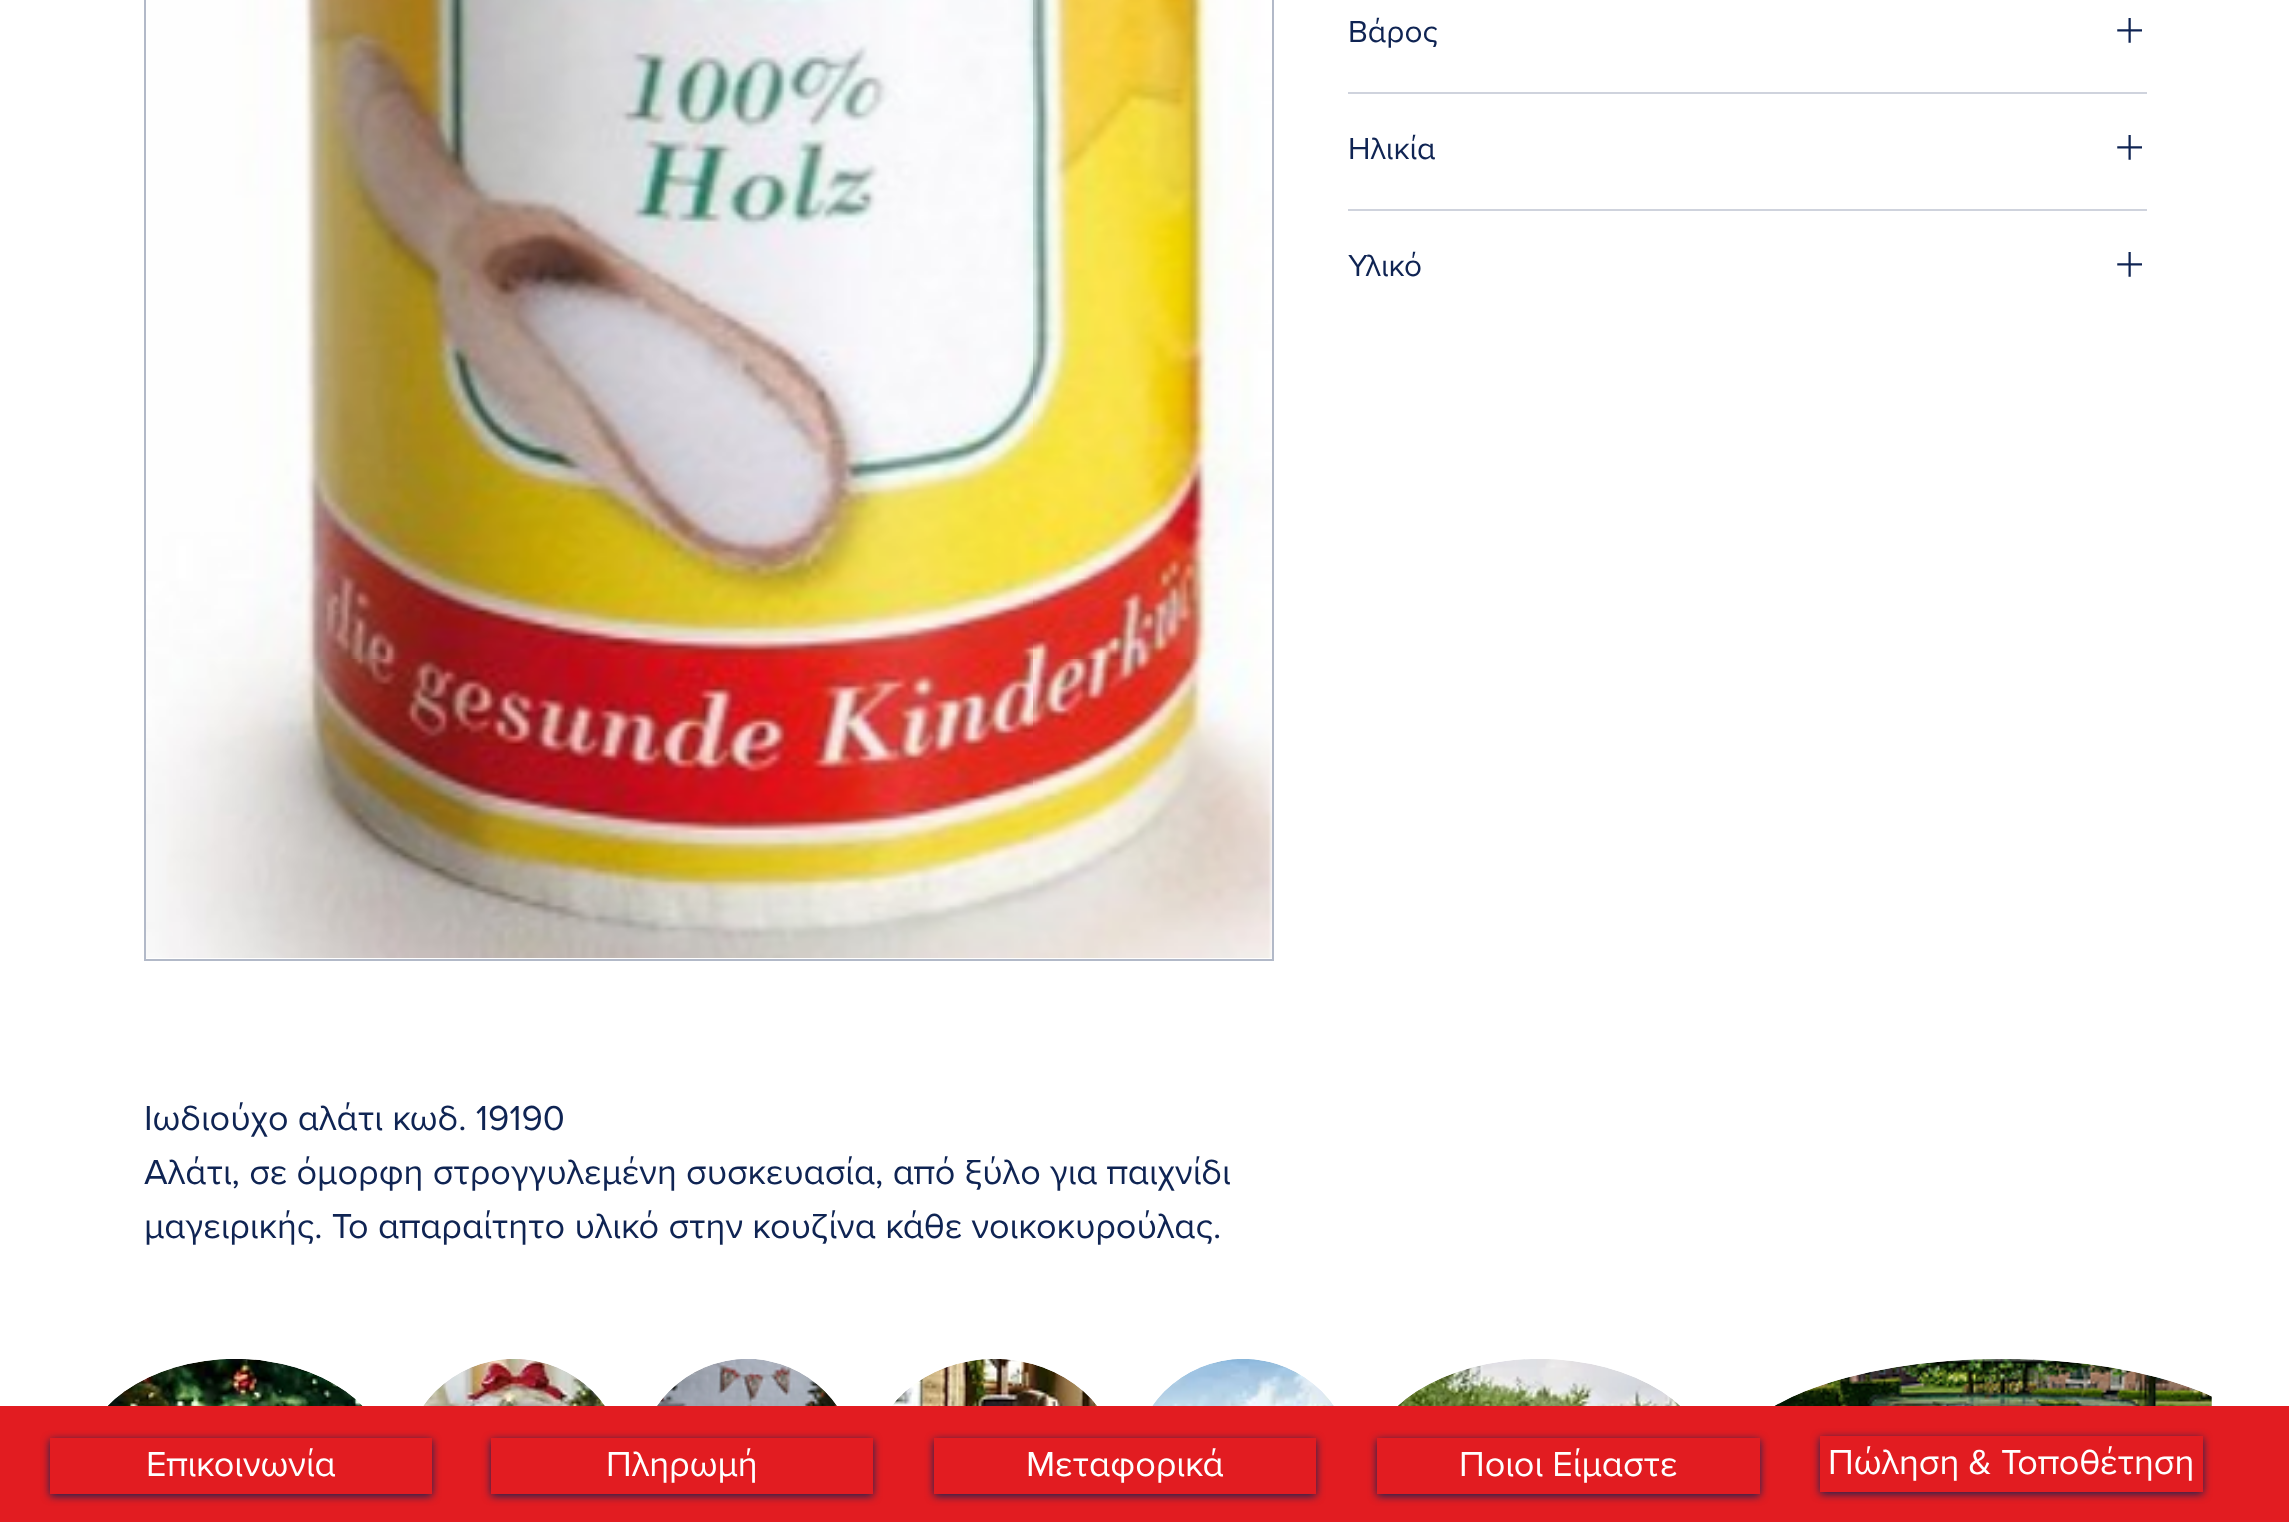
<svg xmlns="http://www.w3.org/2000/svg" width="2289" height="1522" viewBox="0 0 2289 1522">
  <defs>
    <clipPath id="clip1"><path d="M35 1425H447V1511H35ZM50 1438H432V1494H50Z" clip-rule="evenodd"/></clipPath>
    <clipPath id="clip2"><path d="M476 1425H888V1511H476ZM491 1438H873V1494H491Z" clip-rule="evenodd"/></clipPath>
    <clipPath id="clip3"><path d="M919 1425H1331V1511H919ZM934 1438H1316V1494H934Z" clip-rule="evenodd"/></clipPath>
  </defs>
  <rect width="100%" height="100%" fill="#fff"/>
  <path d="M1348 92h799v2H1348z" fill="#cfd3dd"/>
  <image x="2117" y="18" width="25" height="25" href="img/1.png"/>
  <path d="M1348 209h799v2H1348z" fill="#cfd3dd"/>
  <image x="2117" y="135" width="25" height="25" href="img/1.png"/>
  <image x="2117" y="252" width="25" height="25" href="img/1.png"/>
  <path d="M145 -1h1128v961H145z" fill="none" stroke="#b2b9c8" stroke-width="2"/>
  <image x="146" y="0" width="1126" height="958" href="img/2.png"/>
  <image x="108" y="1359" width="255" height="47" href="img/3.png"/>
  <image x="423" y="1359" width="182" height="47" href="img/4.png"/>
  <image x="657" y="1359" width="180" height="47" href="img/5.png"/>
  <image x="892" y="1359" width="205" height="47" href="img/6.png"/>
  <image x="1152" y="1359" width="182" height="47" href="img/7.png"/>
  <image x="1398" y="1359" width="282" height="47" href="img/8.png"/>
  <image x="1774" y="1359" width="438" height="47" href="img/9.png"/>
  <path d="M0 1406h2289v116H0z" fill="#e21c21"/>
  <g clip-path="url(#clip1)">
    <path d="M50 1440h382v56H50z" fill="#0f2453" filter="blur(4.5px)"/>
  </g>
  <g clip-path="url(#clip2)">
    <path d="M491 1440h382v56H491z" fill="#0f2453fa" filter="blur(4.5px)"/>
  </g>
  <g clip-path="url(#clip3)">
    <path d="M934 1440h382v56H934z" fill="#0f2453" filter="blur(4.5px)"/>
  </g>
  <path d="M1377 1440h383v56H1377z" fill="#0f2453" filter="blur(4.5px)"/>
  <path d="M1377 1438h383v56H1377z" fill="#e21c21"/>
  <path d="M1820 1438h383v56H1820z" fill="#0f2453fa" filter="blur(4.5px)"/>
  <path d="M1820 1436h383v56H1820z" fill="#e21c21"/>
  <g font-family="'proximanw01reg'" font-size="31.5" fill="#0f2453">
    <text x="1348" y="42">Βάρος</text>
    <text x="1348" y="159">Ηλικία</text>
    <text x="1348" y="276">Υλικό</text>
  </g>
  <g font-family="'proximanw01reg'" font-size="36" fill="#0f2453">
    <text x="144" y="1130">Ιωδιούχο αλάτι κωδ. 19190</text>
    <text x="144" y="1184">Αλάτι, σε όμορφη στρογγυλεμένη συσκευασία, από ξύλο για παιχνίδι</text>
    <text x="144" y="1238">μαγειρικής. Το απαραίτητο υλικό στην κουζίνα κάθε νοικοκυρούλας.</text>
  </g>
  <g font-family="'proximanw01reg'" font-size="36" fill="#fff">
    <text x="146" y="1476">Επικοινωνία</text>
    <text x="606" y="1476">Πληρωμή</text>
    <text x="1026" y="1476">Μεταφορικά</text>
    <text x="1459" y="1476">Ποιοι Είμαστε</text>
    <text x="1828" y="1474">Πώληση &amp; Τοποθέτηση</text>
  </g>
</svg>
